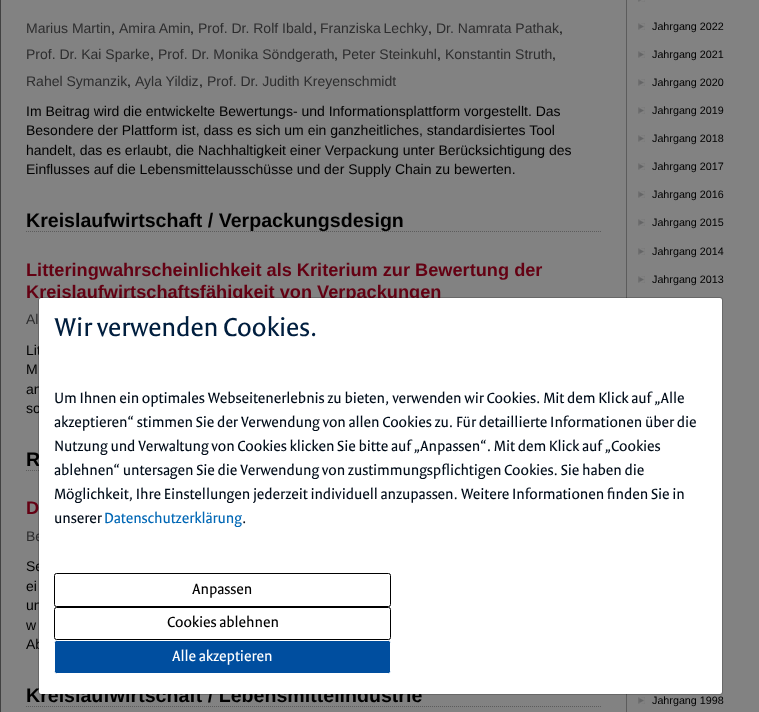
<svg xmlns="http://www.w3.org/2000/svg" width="759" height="712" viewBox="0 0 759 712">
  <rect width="100%" height="100%" fill="#828282"/>
  <path d="M0.5 -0.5h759v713H0.5z" fill="none" stroke="#414141"/>
  <path d="M26 231.5H601" fill="none" stroke="#5c5c5c" stroke-dasharray="1 1"/>
  <path d="M26 470.5H601" fill="none" stroke="#5c5c5c" stroke-dasharray="1 1"/>
  <path d="M26 706.5H601" fill="none" stroke="#5c5c5c" stroke-dasharray="1 1"/>
  <path d="M626.5 -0.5h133v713H626.5z" fill="none" stroke="#5c5c5c"/>
  <image x="638" y="0" width="7" height="2" href="img/1.png"/>
  <image x="638" y="23" width="7" height="7" href="img/2.png"/>
  <image x="638" y="51" width="7" height="7" href="img/2.png"/>
  <image x="638" y="79" width="7" height="7" href="img/2.png"/>
  <image x="638" y="107" width="7" height="7" href="img/2.png"/>
  <image x="638" y="135" width="7" height="7" href="img/2.png"/>
  <image x="638" y="163" width="7" height="7" href="img/2.png"/>
  <image x="638" y="191" width="7" height="7" href="img/2.png"/>
  <image x="638" y="219" width="7" height="7" href="img/2.png"/>
  <image x="638" y="248" width="7" height="7" href="img/2.png"/>
  <image x="638" y="276" width="7" height="7" href="img/2.png"/>
  <image x="638" y="697" width="7" height="7" href="img/2.png"/>
  <text x="26" y="33" font-family="Liberation Sans" font-size="14" fill="#2d2d2e">Marius Martin</text>
  <text x="111" y="33" font-family="Liberation Sans" font-size="14" fill="#000">,</text>
  <text x="119" y="33" font-family="Liberation Sans" font-size="14" fill="#2d2d2e">Amira Amin</text>
  <text x="190" y="33" font-family="Liberation Sans" font-size="14" fill="#000">,</text>
  <text x="198" y="33" font-family="Liberation Sans" font-size="14" fill="#2d2d2e">Prof. Dr. Rolf Ibald</text>
  <text x="313" y="33" font-family="Liberation Sans" font-size="14" fill="#000">,</text>
  <text x="320" y="33" word-spacing="-1" font-family="Liberation Sans" font-size="14" fill="#2d2d2e">Franziska Lechky</text>
  <text x="428" y="33" font-family="Liberation Sans" font-size="14" fill="#000">,</text>
  <text x="436" y="33" font-family="Liberation Sans" font-size="14" fill="#2d2d2e">Dr. Namrata Pathak</text>
  <text x="559" y="33" font-family="Liberation Sans" font-size="14" fill="#000">,</text>
  <text x="26" y="59" font-family="Liberation Sans" font-size="14" fill="#2d2d2e">Prof. Dr. Kai Sparke</text>
  <text x="150" y="59" font-family="Liberation Sans" font-size="14" fill="#000">,</text>
  <text x="158" y="59" font-family="Liberation Sans" font-size="14" fill="#2d2d2e">Prof. Dr. Monika Söndgerath</text>
  <text x="334" y="59" font-family="Liberation Sans" font-size="14" fill="#000">,</text>
  <text x="342" y="59" font-family="Liberation Sans" font-size="14" fill="#2d2d2e">Peter Steinkuhl</text>
  <text x="437" y="59" font-family="Liberation Sans" font-size="14" fill="#000">,</text>
  <text x="445" y="59" font-family="Liberation Sans" font-size="14" fill="#2d2d2e">Konstantin Struth</text>
  <text x="552" y="59" font-family="Liberation Sans" font-size="14" fill="#000">,</text>
  <text x="26" y="86" font-family="Liberation Sans" font-size="14" fill="#2d2d2e">Rahel Symanzik</text>
  <text x="127" y="86" font-family="Liberation Sans" font-size="14" fill="#000">,</text>
  <text x="135" y="86" font-family="Liberation Sans" font-size="14" fill="#2d2d2e">Ayla Yildiz</text>
  <text x="199" y="86" font-family="Liberation Sans" font-size="14" fill="#000">,</text>
  <text x="207" y="86" font-family="Liberation Sans" font-size="14" fill="#2d2d2e">Prof. Dr. Judith Kreyenschmidt</text>
  <g font-family="Liberation Sans" font-size="14" fill="#000">
    <text x="26" y="116">Im Beitrag wird die entwickelte Bewertungs- und Informationsplattform vorgestellt. Das</text>
    <text x="26" y="135">Besondere der Plattform ist, dass es sich um ein ganzheitliches, standardisiertes Tool</text>
    <text x="26" y="155">handelt, das es erlaubt, die Nachhaltigkeit einer Verpackung unter Berücksichtigung des</text>
    <text x="26" y="174">Einflusses auf die Lebensmittelausschüsse und der Supply Chain zu bewerten.</text>
  </g>
  <text x="26" y="227" font-family="Liberation Sans" font-size="19.6" font-weight="bold" fill="#000">Kreislaufwirtschaft / Verpackungsdesign</text>
  <g font-family="Liberation Sans" font-size="18.2" font-weight="bold" fill="#640113">
    <text x="26" y="276">Litteringwahrscheinlichkeit als Kriterium zur Bewertung der</text>
    <text x="26" y="298">Kreislaufwirtschaftsfähigkeit von Verpackungen</text>
  </g>
  <text x="26" y="324" font-family="Liberation Sans" font-size="14" fill="#2d2d2e">Al</text>
  <g font-family="Liberation Sans" font-size="14" fill="#000">
    <text x="26" y="355">Lit</text>
    <text x="26" y="374">M</text>
    <text x="26" y="394">an</text>
    <text x="26" y="413">so</text>
  </g>
  <text x="26" y="466" font-family="Liberation Sans" font-size="19.6" font-weight="bold" fill="#000">R</text>
  <text x="26" y="514" font-family="Liberation Sans" font-size="18.2" font-weight="bold" fill="#640113">D</text>
  <text x="26" y="541" font-family="Liberation Sans" font-size="14" fill="#2d2d2e">Be</text>
  <g font-family="Liberation Sans" font-size="14" fill="#000">
    <text x="26" y="571">Se</text>
    <text x="26" y="591">ei</text>
    <text x="26" y="610">un</text>
    <text x="26" y="630">w</text>
    <text x="26" y="649">Ab</text>
  </g>
  <text x="26" y="702" font-family="Liberation Sans" font-size="19.6" font-weight="bold" fill="#000">Kreislaufwirtschaft / Lebensmittelindustrie</text>
  <g font-family="Liberation Sans" font-size="10.75" fill="#000">
    <text x="652" y="30">Jahrgang 2022</text>
    <text x="652" y="58">Jahrgang 2021</text>
    <text x="652" y="86">Jahrgang 2020</text>
    <text x="652" y="114">Jahrgang 2019</text>
    <text x="652" y="142">Jahrgang 2018</text>
    <text x="652" y="170">Jahrgang 2017</text>
    <text x="652" y="198">Jahrgang 2016</text>
    <text x="652" y="226">Jahrgang 2015</text>
    <text x="652" y="255">Jahrgang 2014</text>
    <text x="652" y="283">Jahrgang 2013</text>
    <text x="652" y="704">Jahrgang 1998</text>
  </g>
  <rect x="39" y="298" width="683" height="396" rx="2" fill="#fff"/>
  <rect x="38.5" y="297.5" width="684" height="397" rx="2.5" fill="none" stroke="#00000033"/>
  <text x="54" y="336" font-family="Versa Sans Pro" font-size="28" fill="#001e3e">Wir verwenden Cookies.</text>
  <g font-family="Versa Sans Pro" font-size="16" fill="#000c19">
    <text x="54" y="403">Um Ihnen ein optimales Webseitenerlebnis zu bieten, verwenden wir Cookies. Mit dem Klick auf „Alle</text>
    <text x="54" y="427">akzeptieren“ stimmen Sie der Verwendung von allen Cookies zu. Für detaillierte Informationen über die</text>
    <text x="54" y="451">Nutzung und Verwaltung von Cookies klicken Sie bitte auf „Anpassen“. Mit dem Klick auf „Cookies</text>
    <text x="54" y="475">ablehnen“ untersagen Sie die Verwendung von zustimmungspflichtigen Cookies. Sie haben die</text>
    <text x="54" y="499">Möglichkeit, Ihre Einstellungen jederzeit individuell anzupassen. Weitere Informationen finden Sie in</text>
    <text x="54" y="523">unserer</text>
  </g>
  <text x="104" y="523" font-family="Versa Sans Pro" font-size="16" fill="#0067b5">Datenschutzerklärung</text>
  <text x="242" y="523" font-family="Versa Sans Pro" font-size="16" fill="#000c19">.</text>
  <rect x="54.5" y="573.5" width="336" height="33" rx="2" fill="none" stroke="#000"/>
  <text x="192" y="594" font-family="Versa Sans Pro" font-size="16" fill="#000">Anpassen</text>
  <rect x="54.5" y="607.5" width="336" height="32" rx="2" fill="none" stroke="#000"/>
  <text x="167" y="627" font-family="Versa Sans Pro" font-size="16" fill="#000">Cookies ablehnen</text>
  <rect x="54.5" y="640.5" width="336" height="33" rx="2" fill="#004e9f" stroke="#fff"/>
  <text x="172" y="661" font-family="Versa Sans Pro" font-size="16" fill="#fff">Alle akzeptieren</text>
</svg>
